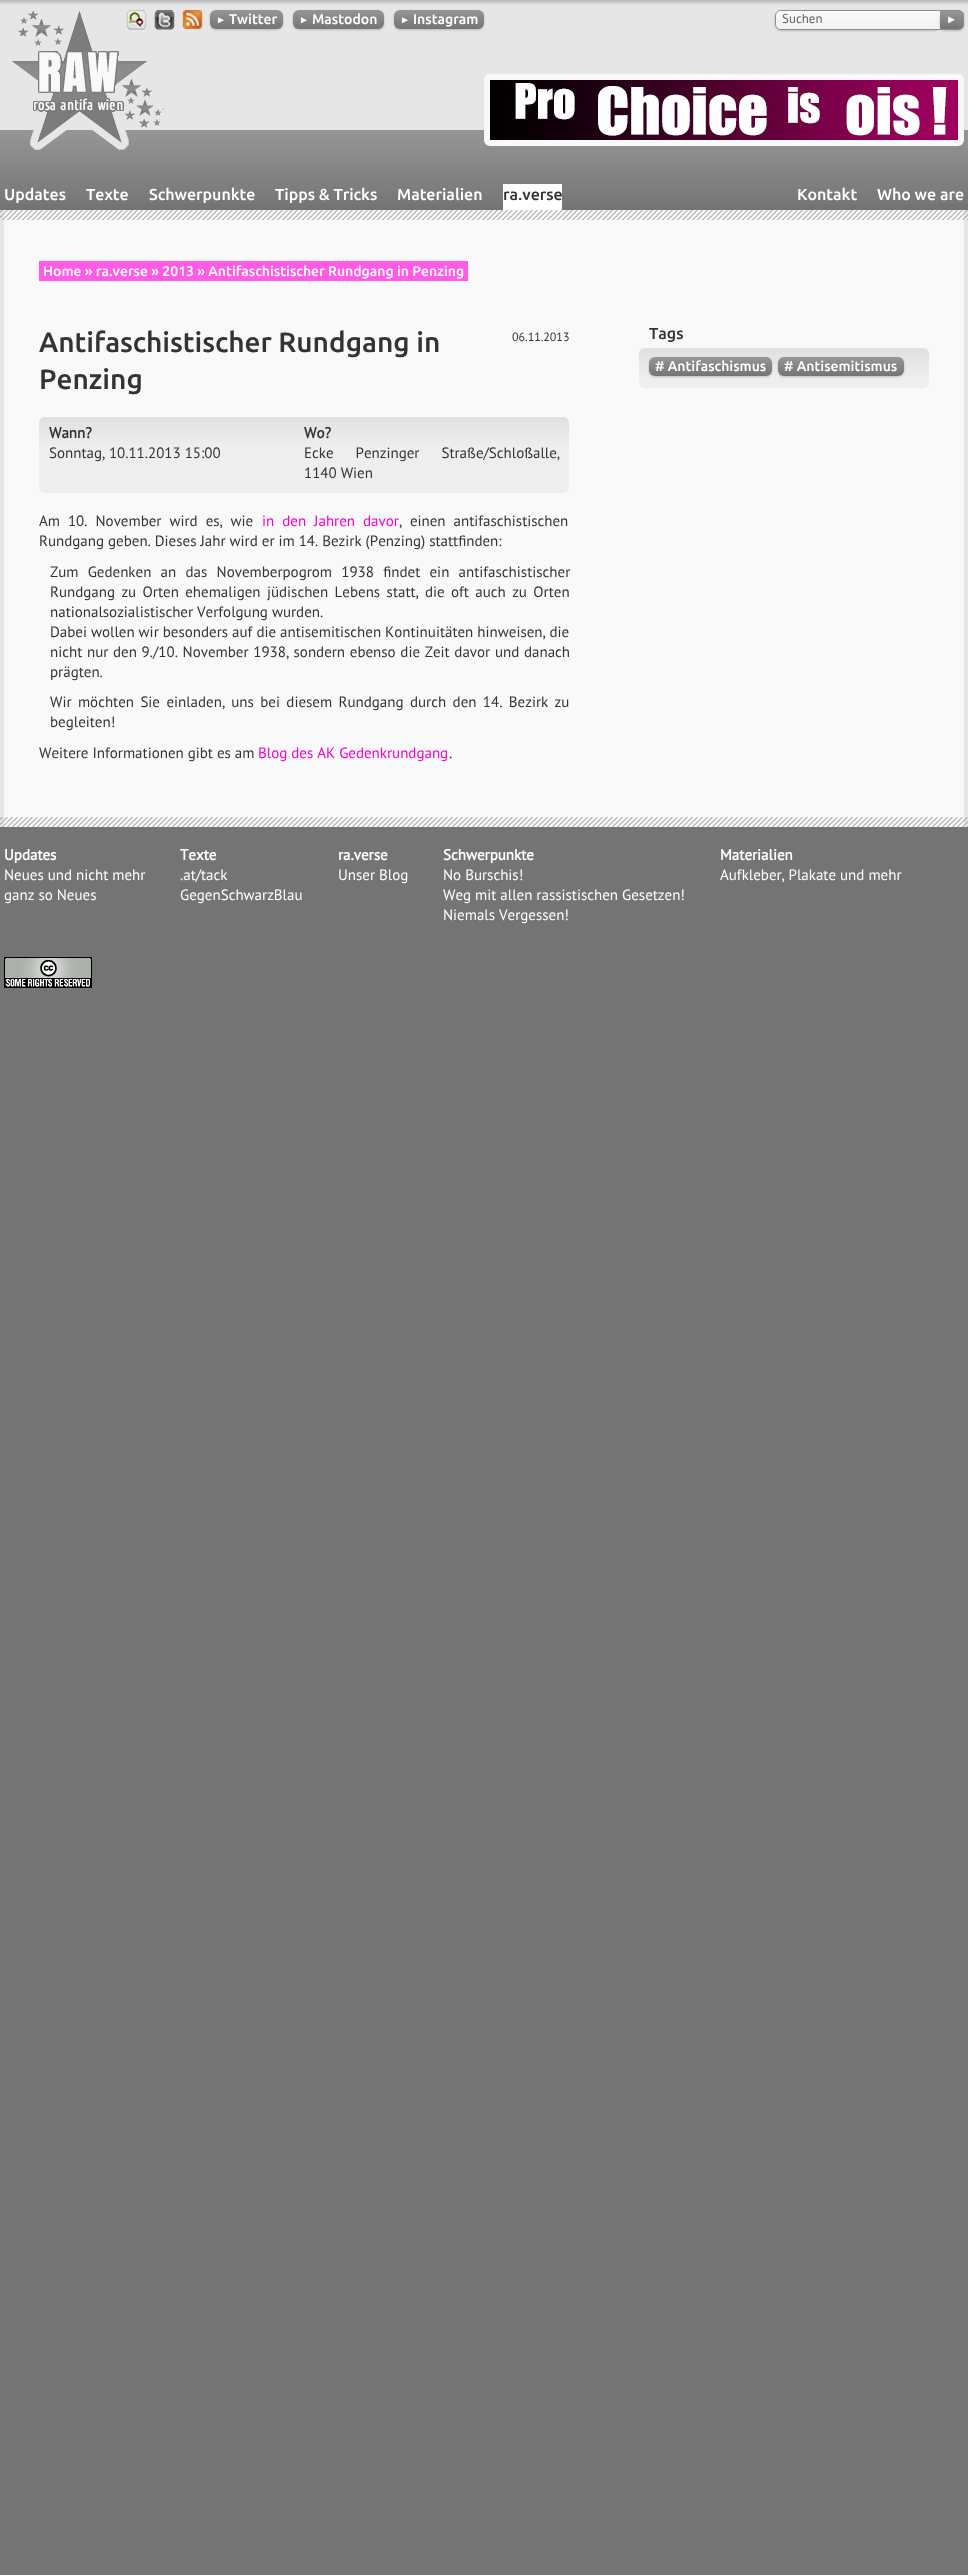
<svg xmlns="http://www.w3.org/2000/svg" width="968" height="2575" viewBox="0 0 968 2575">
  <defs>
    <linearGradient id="g1" gradientUnits="userSpaceOnUse" x1="484" y1="0" x2="484" y2="130"><stop offset="0" stop-color="#b5b5b5"/><stop offset="0.04" stop-color="#e6e6e6"/><stop offset="1" stop-color="#e6e6e6"/></linearGradient>
    <linearGradient id="g2" gradientUnits="userSpaceOnUse" x1="484" y1="130" x2="484" y2="210"><stop offset="0" stop-color="#969696"/><stop offset="1" stop-color="#747474"/></linearGradient>
    <linearGradient id="g3" gradientUnits="userSpaceOnUse" x1="247" y1="10" x2="247" y2="29"><stop offset="0" stop-color="#969696"/><stop offset="1" stop-color="#747474"/></linearGradient>
    <linearGradient id="g4" gradientUnits="userSpaceOnUse" x1="339" y1="10" x2="339" y2="29"><stop offset="0" stop-color="#969696"/><stop offset="1" stop-color="#747474"/></linearGradient>
    <linearGradient id="g5" gradientUnits="userSpaceOnUse" x1="439" y1="10" x2="439" y2="29"><stop offset="0" stop-color="#969696"/><stop offset="1" stop-color="#747474"/></linearGradient>
    <clipPath id="clip1"><path d="M781 10H940V30H781C777.5 30 775 27.5 775 24V16C775 12.5 777.5 10 781 10Z"/></clipPath>
    <linearGradient id="g6" gradientUnits="userSpaceOnUse" x1="858" y1="11" x2="858" y2="41"><stop offset="0" stop-color="#f9f9f9"/><stop offset="1" stop-color="#eee"/></linearGradient>
    <clipPath id="clip2"><path d="M940 10H958C961.5 10 964 12.5 964 16V24C964 27.5 961.5 30 958 30H940Z"/></clipPath>
    <linearGradient id="g7" gradientUnits="userSpaceOnUse" x1="952" y1="11" x2="952" y2="29"><stop offset="0" stop-color="#969696"/><stop offset="1" stop-color="#747474"/></linearGradient>
    <linearGradient id="g8" gradientUnits="userSpaceOnUse" x1="304" y1="417" x2="304" y2="493"><stop offset="0" stop-color="#e0e0e0"/><stop offset="0.39" stop-color="#eee"/><stop offset="1" stop-color="#eee"/></linearGradient>
    <linearGradient id="g9" gradientUnits="userSpaceOnUse" x1="784" y1="348" x2="784" y2="388"><stop offset="0" stop-color="#e0e0e0"/><stop offset="0.75" stop-color="#eee"/><stop offset="1" stop-color="#eee"/></linearGradient>
    <linearGradient id="g10" gradientUnits="userSpaceOnUse" x1="711" y1="357" x2="711" y2="376"><stop offset="0" stop-color="#969696"/><stop offset="1" stop-color="#747474"/></linearGradient>
    <linearGradient id="g11" gradientUnits="userSpaceOnUse" x1="841" y1="357" x2="841" y2="376"><stop offset="0" stop-color="#969696"/><stop offset="1" stop-color="#747474"/></linearGradient>
  </defs>
  <rect width="100%" height="100%" fill="#747474"/>
  <path d="M0 0h968v130H0z" fill="url(#g1)"/>
  <path d="M0 130h968v74H0z" fill="url(#g2)"/>
  <image x="12" y="11" width="152" height="139" href="img/1.png"/>
  <image x="126" y="10" width="21" height="20" href="img/2.png"/>
  <image x="154" y="10" width="21" height="20" href="img/3.png"/>
  <image x="182" y="10" width="21" height="20" href="img/4.png"/>
  <rect x="210" y="11" width="73" height="19" rx="6" fill="#00000033" filter="blur(1px)"/>
  <rect x="210" y="10" width="73" height="19" rx="6" fill="url(#g3)"/>
  <rect x="293" y="11" width="91" height="19" rx="6" fill="#00000033" filter="blur(1px)"/>
  <rect x="293" y="10" width="91" height="19" rx="6" fill="url(#g4)"/>
  <rect x="394" y="11" width="90" height="19" rx="6" fill="#00000033" filter="blur(1px)"/>
  <rect x="394" y="10" width="90" height="19" rx="6" fill="url(#g5)"/>
  <rect x="775" y="11" width="165" height="20" rx="6" fill="#00000033" filter="blur(1px)"/>
  <g clip-path="url(#clip1)">
    <path d="M775 11h165v18H775z" fill="url(#g6)"/>
  </g>
  <path d="M781 10H940V30H781C778 30 775 27 775 24V16C775 13 778 10 781 10ZM781 11H940V29H781C778 29 776 27 776 24V16C776 13 778 11 781 11Z" fill="#8d8d8d" fill-rule="evenodd"/>
  <rect x="940" y="11" width="24" height="20" rx="6" fill="#00000033" filter="blur(1px)"/>
  <g clip-path="url(#clip2)">
    <path d="M940 11h24v18H940z" fill="url(#g7)"/>
  </g>
  <path d="M940 10H958C961.5 10 964 12.5 964 16V24C964 27.5 961.5 30 958 30H940ZM940 11H955C963 11 963 13 963 20C963 27 963 29 955 29H940Z" fill="#8d8d8d" fill-rule="evenodd"/>
  <rect x="487" y="77" width="474" height="66" rx="3" fill="none" stroke="#f9f9f9" stroke-width="6"/>
  <image x="490" y="80" width="468" height="60" href="img/5.png"/>
  <path d="M503 184h59v26H503z" fill="#fff"/>
  <path d="M0 210h968v617H0z" fill="#e6e6e6"/>
  <image x="0" y="210" width="968" height="10" href="img/6.png"/>
  <path d="M4 210h960v607H4z" fill="#f9f9f9"/>
  <image x="4" y="210" width="960" height="10" href="img/7.png"/>
  <path d="M39 261h429v20H39z" fill="#ff5be7"/>
  <rect x="39" y="417" width="530" height="76" rx="6" fill="url(#g8)"/>
  <rect x="639" y="348" width="290" height="40" rx="6" fill="url(#g9)"/>
  <rect x="649" y="358" width="123" height="19" rx="6" fill="#00000033" filter="blur(1px)"/>
  <rect x="649" y="357" width="123" height="19" rx="6" fill="url(#g10)"/>
  <rect x="778" y="358" width="126" height="19" rx="6" fill="#00000033" filter="blur(1px)"/>
  <rect x="778" y="357" width="126" height="19" rx="6" fill="url(#g11)"/>
  <image x="0" y="817" width="968" height="10" href="img/6.png"/>
  <path d="M4 817h960v10H4z" fill="#f9f9f9"/>
  <image x="4" y="817" width="960" height="10" href="img/7.png"/>
  <image x="4" y="957" width="88" height="31" href="img/8.png"/>
  <text x="216" y="23" font-family="Liberation Sans" font-size="10" fill="#fff">►</text>
  <text x="229" y="24" font-family="Ubuntu" font-size="14" font-weight="500" fill="#fff">Twitter</text>
  <text x="299" y="23" font-family="Liberation Sans" font-size="10" fill="#fff">►</text>
  <text x="312" y="24" font-family="Ubuntu" font-size="14" font-weight="500" fill="#fff">Mastodon</text>
  <text x="400" y="23" font-family="Liberation Sans" font-size="10" fill="#fff">►</text>
  <text x="413" y="24" font-family="Ubuntu" font-size="14" font-weight="500" fill="#fff">Instagram</text>
  <text x="782" y="23" font-family="PT Sans" font-size="13" fill="#666">Suchen</text>
  <text x="946" y="23" font-family="Liberation Sans" font-size="11" fill="#fff">►</text>
  <g font-family="Ubuntu" font-size="16" font-weight="500" fill="#fff">
    <text x="4" y="200">Updates</text>
    <text x="86" y="200">Texte</text>
    <text x="149" y="200">Schwerpunkte</text>
    <text x="275" y="200">Tipps &amp; Tricks</text>
    <text x="397" y="200">Materialien</text>
  </g>
  <text x="503" y="200" font-family="Ubuntu" font-size="16" font-weight="500" fill="#333">ra.verse</text>
  <g font-family="Ubuntu" font-size="16" font-weight="500" fill="#fff">
    <text x="797" y="200">Kontakt</text>
    <text x="877" y="200">Who we are</text>
  </g>
  <text x="43" y="276" font-family="Ubuntu" font-size="14" font-weight="500" fill="#fff">Home » ra.verse » 2013 » Antifaschistischer Rundgang in Penzing</text>
  <g font-family="Ubuntu" font-size="28" font-weight="500" fill="#333">
    <text x="39" y="352">Antifaschistischer Rundgang in</text>
    <text x="39" y="389">Penzing</text>
  </g>
  <text x="512" y="341" font-family="PT Sans" font-size="12" fill="#333">06.11.2013</text>
  <text x="49" y="438" font-family="PT Sans" font-size="15" font-weight="bold" fill="#333">Wann?</text>
  <text x="49" y="458" font-family="PT Sans" font-size="15" fill="#333">Sonntag, 10.11.2013 15:00</text>
  <text x="304" y="438" font-family="PT Sans" font-size="15" font-weight="bold" fill="#333">Wo?</text>
  <g font-family="PT Sans" font-size="15" fill="#333">
    <text x="304" y="458" word-spacing="18">Ecke Penzinger Straße/Schloßalle,</text>
    <text x="304" y="478">1140 Wien</text>
    <text x="39" y="526" word-spacing="4">Am 10. November wird es, wie</text>
  </g>
  <text x="262" y="526" word-spacing="4" font-family="PT Sans" font-size="15" fill="#f200ce">in den Jahren davor</text>
  <g font-family="PT Sans" font-size="15" fill="#333">
    <text x="399" y="526" word-spacing="4">, einen antifaschistischen</text>
    <text x="39" y="546">Rundgang geben. Dieses Jahr wird er im 14. Bezirk (Penzing) stattfinden:</text>
    <text x="50" y="577" word-spacing="5.25">Zum Gedenken an das Novemberpogrom 1938 findet ein antifaschistischer</text>
    <text x="50" y="597" word-spacing="2.4">Rundgang zu Orten ehemaligen jüdischen Lebens statt, die oft auch zu Orten</text>
    <text x="50" y="617">nationalsozialistischer Verfolgung wurden.</text>
    <text x="50" y="637">Dabei wollen wir besonders auf die antisemitischen Kontinuitäten hinweisen, die</text>
    <text x="50" y="657" word-spacing="0.7">nicht nur den 9./10. November 1938, sondern ebenso die Zeit davor und danach</text>
    <text x="50" y="677">prägten.</text>
    <text x="50" y="707" word-spacing="2.4">Wir möchten Sie einladen, uns bei diesem Rundgang durch den 14. Bezirk zu</text>
    <text x="50" y="727">begleiten!</text>
    <text x="39" y="758">Weitere Informationen gibt es am</text>
  </g>
  <text x="258" y="758" font-family="PT Sans" font-size="15" fill="#f200ce">Blog des AK Gedenkrundgang</text>
  <text x="449" y="758" font-family="PT Sans" font-size="15" fill="#333">.</text>
  <text x="649" y="339" font-family="Ubuntu" font-size="16" font-weight="500" fill="#333">Tags</text>
  <g font-family="Ubuntu" font-size="14" font-weight="500" fill="#fff">
    <text x="655" y="371"># Antifaschismus</text>
    <text x="784" y="371"># Antisemitismus</text>
  </g>
  <text x="4" y="860" font-family="PT Sans" font-size="15" font-weight="bold" fill="#fff">Updates</text>
  <g font-family="PT Sans" font-size="15" fill="#fff">
    <text x="4" y="880">Neues und nicht mehr</text>
    <text x="4" y="900">ganz so Neues</text>
  </g>
  <text x="180" y="860" font-family="PT Sans" font-size="15" font-weight="bold" fill="#fff">Texte</text>
  <g font-family="PT Sans" font-size="15" fill="#fff">
    <text x="180" y="880">.at/tack</text>
    <text x="180" y="900">GegenSchwarzBlau</text>
  </g>
  <text x="338" y="860" font-family="PT Sans" font-size="15" font-weight="bold" fill="#fff">ra.verse</text>
  <text x="338" y="880" font-family="PT Sans" font-size="15" fill="#fff">Unser Blog</text>
  <text x="443" y="860" font-family="PT Sans" font-size="15" font-weight="bold" fill="#fff">Schwerpunkte</text>
  <g font-family="PT Sans" font-size="15" fill="#fff">
    <text x="443" y="880">No Burschis!</text>
    <text x="443" y="900">Weg mit allen rassistischen Gesetzen!</text>
    <text x="443" y="920">Niemals Vergessen!</text>
  </g>
  <text x="720" y="860" font-family="PT Sans" font-size="15" font-weight="bold" fill="#fff">Materialien</text>
  <text x="720" y="880" font-family="PT Sans" font-size="15" fill="#fff">Aufkleber, Plakate und mehr</text>
</svg>
